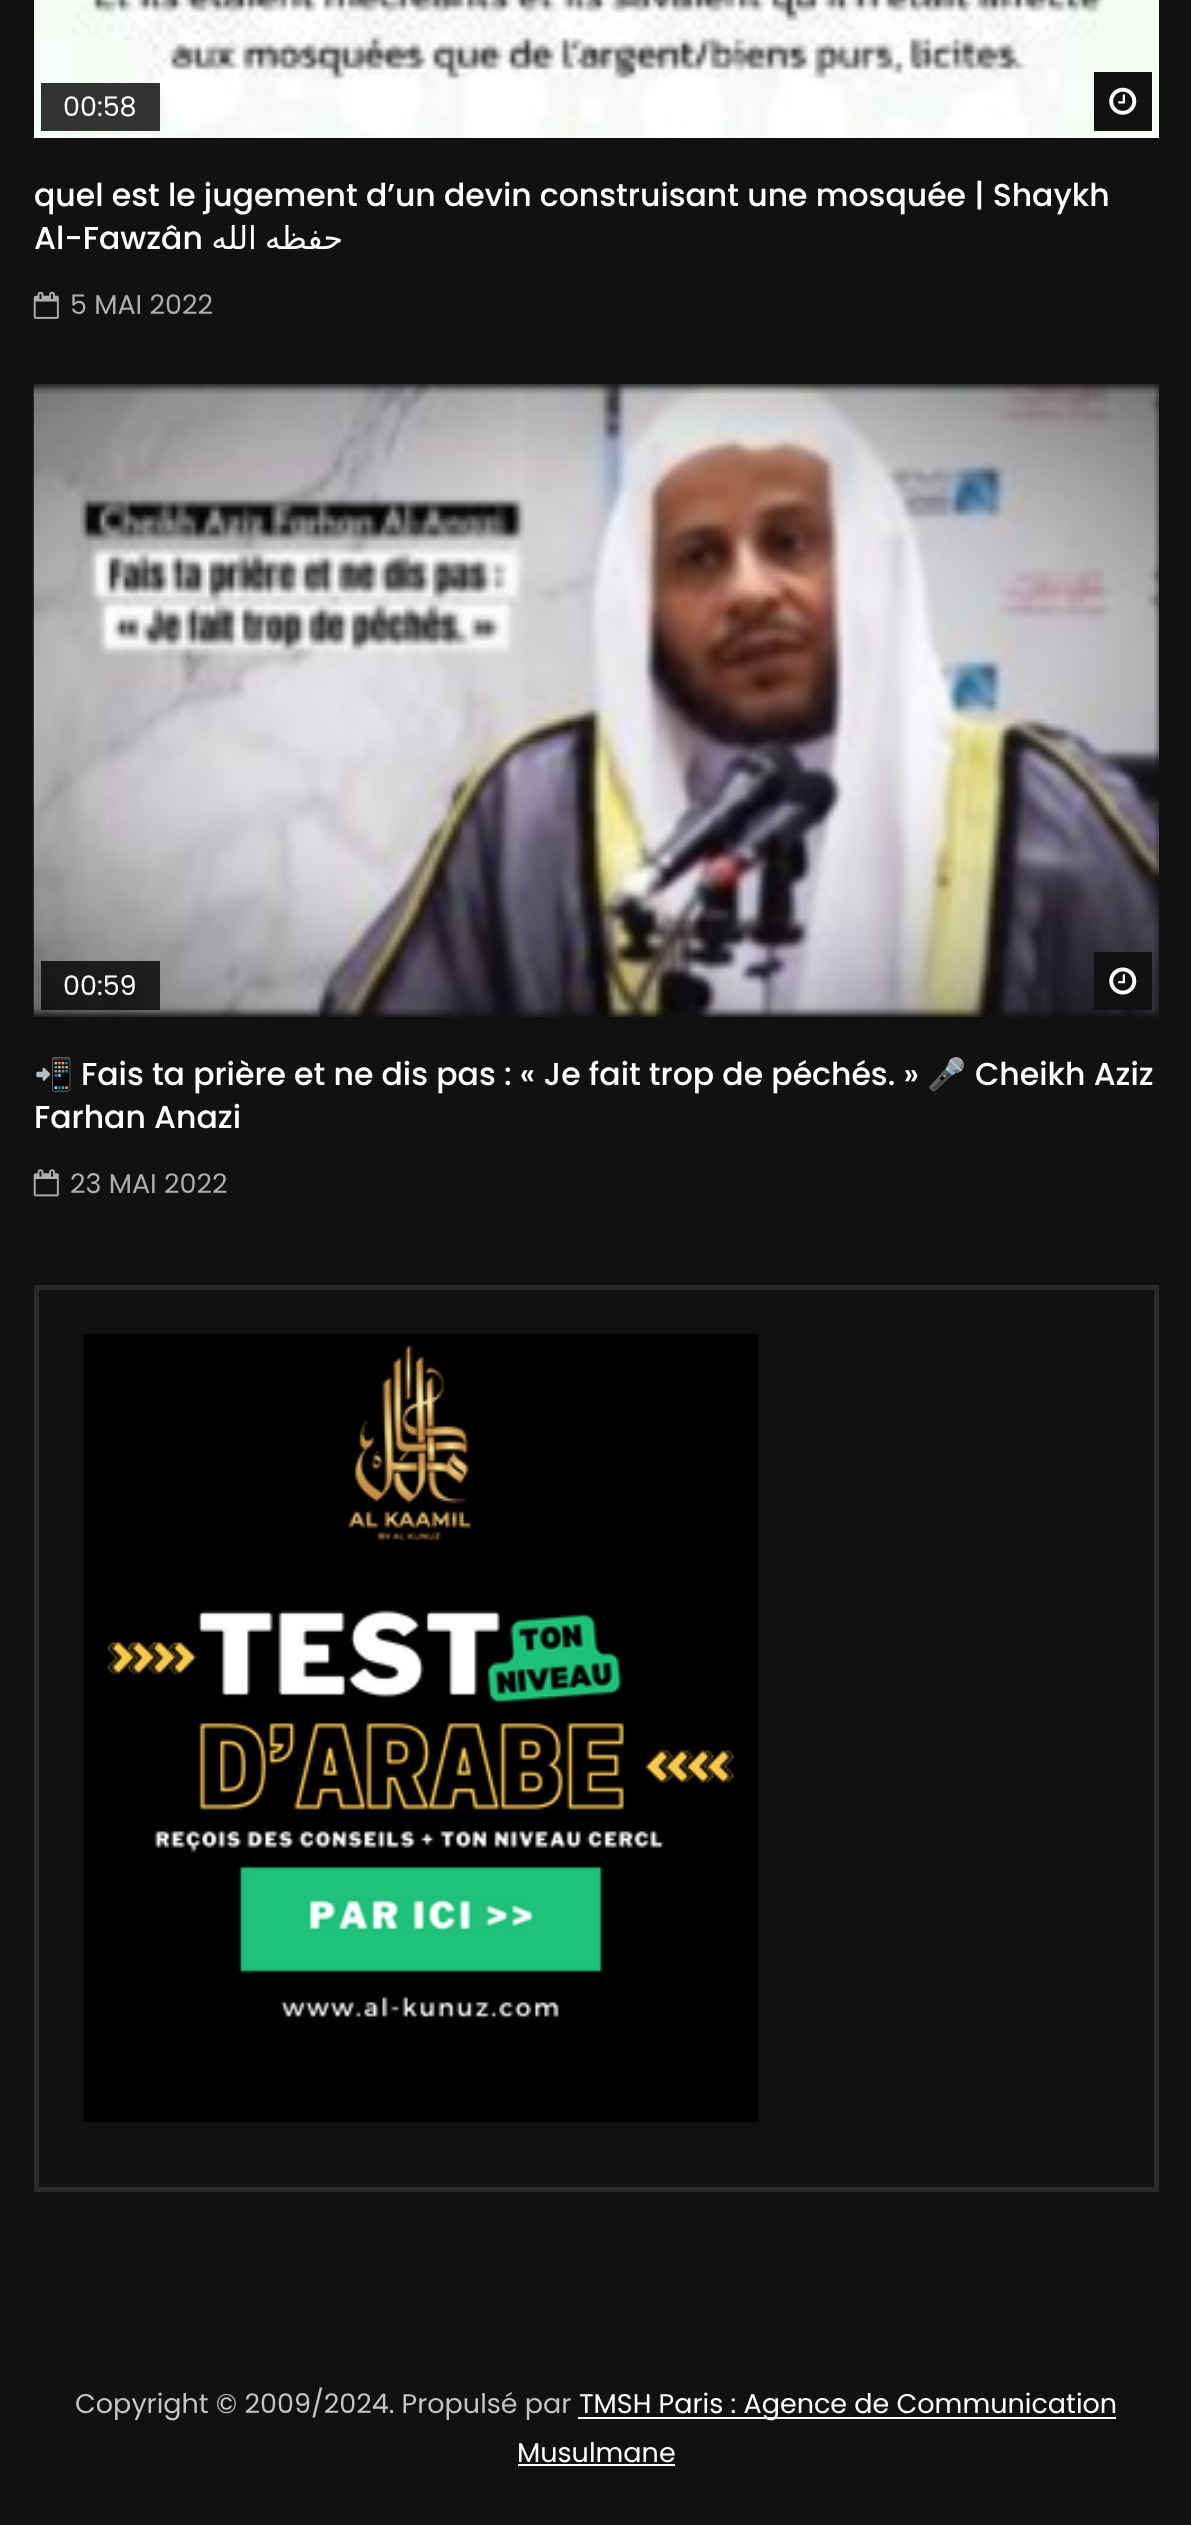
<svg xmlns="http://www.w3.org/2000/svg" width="1191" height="2525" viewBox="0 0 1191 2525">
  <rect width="100%" height="100%" fill="#111"/>
  <image x="34" y="0" width="1125" height="138" href="img/1.png"/>
  <path d="M41 83h119v48H41z" fill="#000000cc"/>
  <path d="M1094 72h58v59H1094z" fill="#111"/>
  <image x="1109" y="87" width="28" height="28" href="img/2.png"/>
  <image x="33" y="291" width="26" height="28" href="img/3.png"/>
  <image x="33" y="384" width="1126" height="633" href="img/4.png"/>
  <path d="M41 961h119v49H41z" fill="#000000cc"/>
  <path d="M1094 952h58v58H1094z" fill="#111"/>
  <image x="1109" y="967" width="28" height="28" href="img/5.png"/>
  <image x="33" y="1169" width="26" height="28" href="img/6.png"/>
  <path d="M36.5 1287.5h1120v902H36.5z" fill="none" stroke="#292929" stroke-width="5"/>
  <image x="83" y="1334" width="676" height="788" href="img/7.png"/>
  <path d="M578 2417h538v2H578z" fill="#fff"/>
  <path d="M518 2464h157v2H518z" fill="#fff"/>
  <text x="63" y="116" font-family="Poppins" font-size="27" fill="#fff">00:58</text>
  <g font-family="Poppins" font-size="31.5" font-weight="500" fill="#fff">
    <text x="34" y="206">quel est le jugement d’un devin construisant une mosquée | Shaykh</text>
    <text x="34" y="249">Al-Fawzân</text>
  </g>
  <text x="343" y="249" word-spacing="-2" font-family="DejaVu Sans" font-size="31.5" direction="rtl" fill="#fff">حفظه الله</text>
  <text x="70" y="314" font-family="Poppins" font-size="27" fill="#aeaeae">5 MAI 2022</text>
  <text x="63" y="995" font-family="Poppins" font-size="27" fill="#fff">00:59</text>
  <text x="34" y="1085" font-family="Noto Color Emoji" font-size="31.5" fill="#fff">📲</text>
  <text x="81" y="1085" font-family="Poppins" font-size="31.5" font-weight="500" fill="#fff">Fais ta prière et ne dis pas : « Je fait trop de péchés. »</text>
  <text x="927" y="1085" font-family="Noto Color Emoji" font-size="31.5" fill="#fff">🎤</text>
  <g font-family="Poppins" font-size="31.5" font-weight="500" fill="#fff">
    <text x="975" y="1085">Cheikh Aziz</text>
    <text x="34" y="1128">Farhan Anazi</text>
  </g>
  <text x="70" y="1193" font-family="Poppins" font-size="27" fill="#aeaeae">23 MAI 2022</text>
  <text x="75" y="2413" font-family="Poppins" font-size="27" fill="#c4c4c4">Copyright © 2009/2024. Propulsé par</text>
  <g font-family="Poppins" font-size="27" fill="#fff">
    <text x="579" y="2413">TMSH Paris : Agence de Communication</text>
    <text x="517" y="2462">Musulmane</text>
  </g>
</svg>
